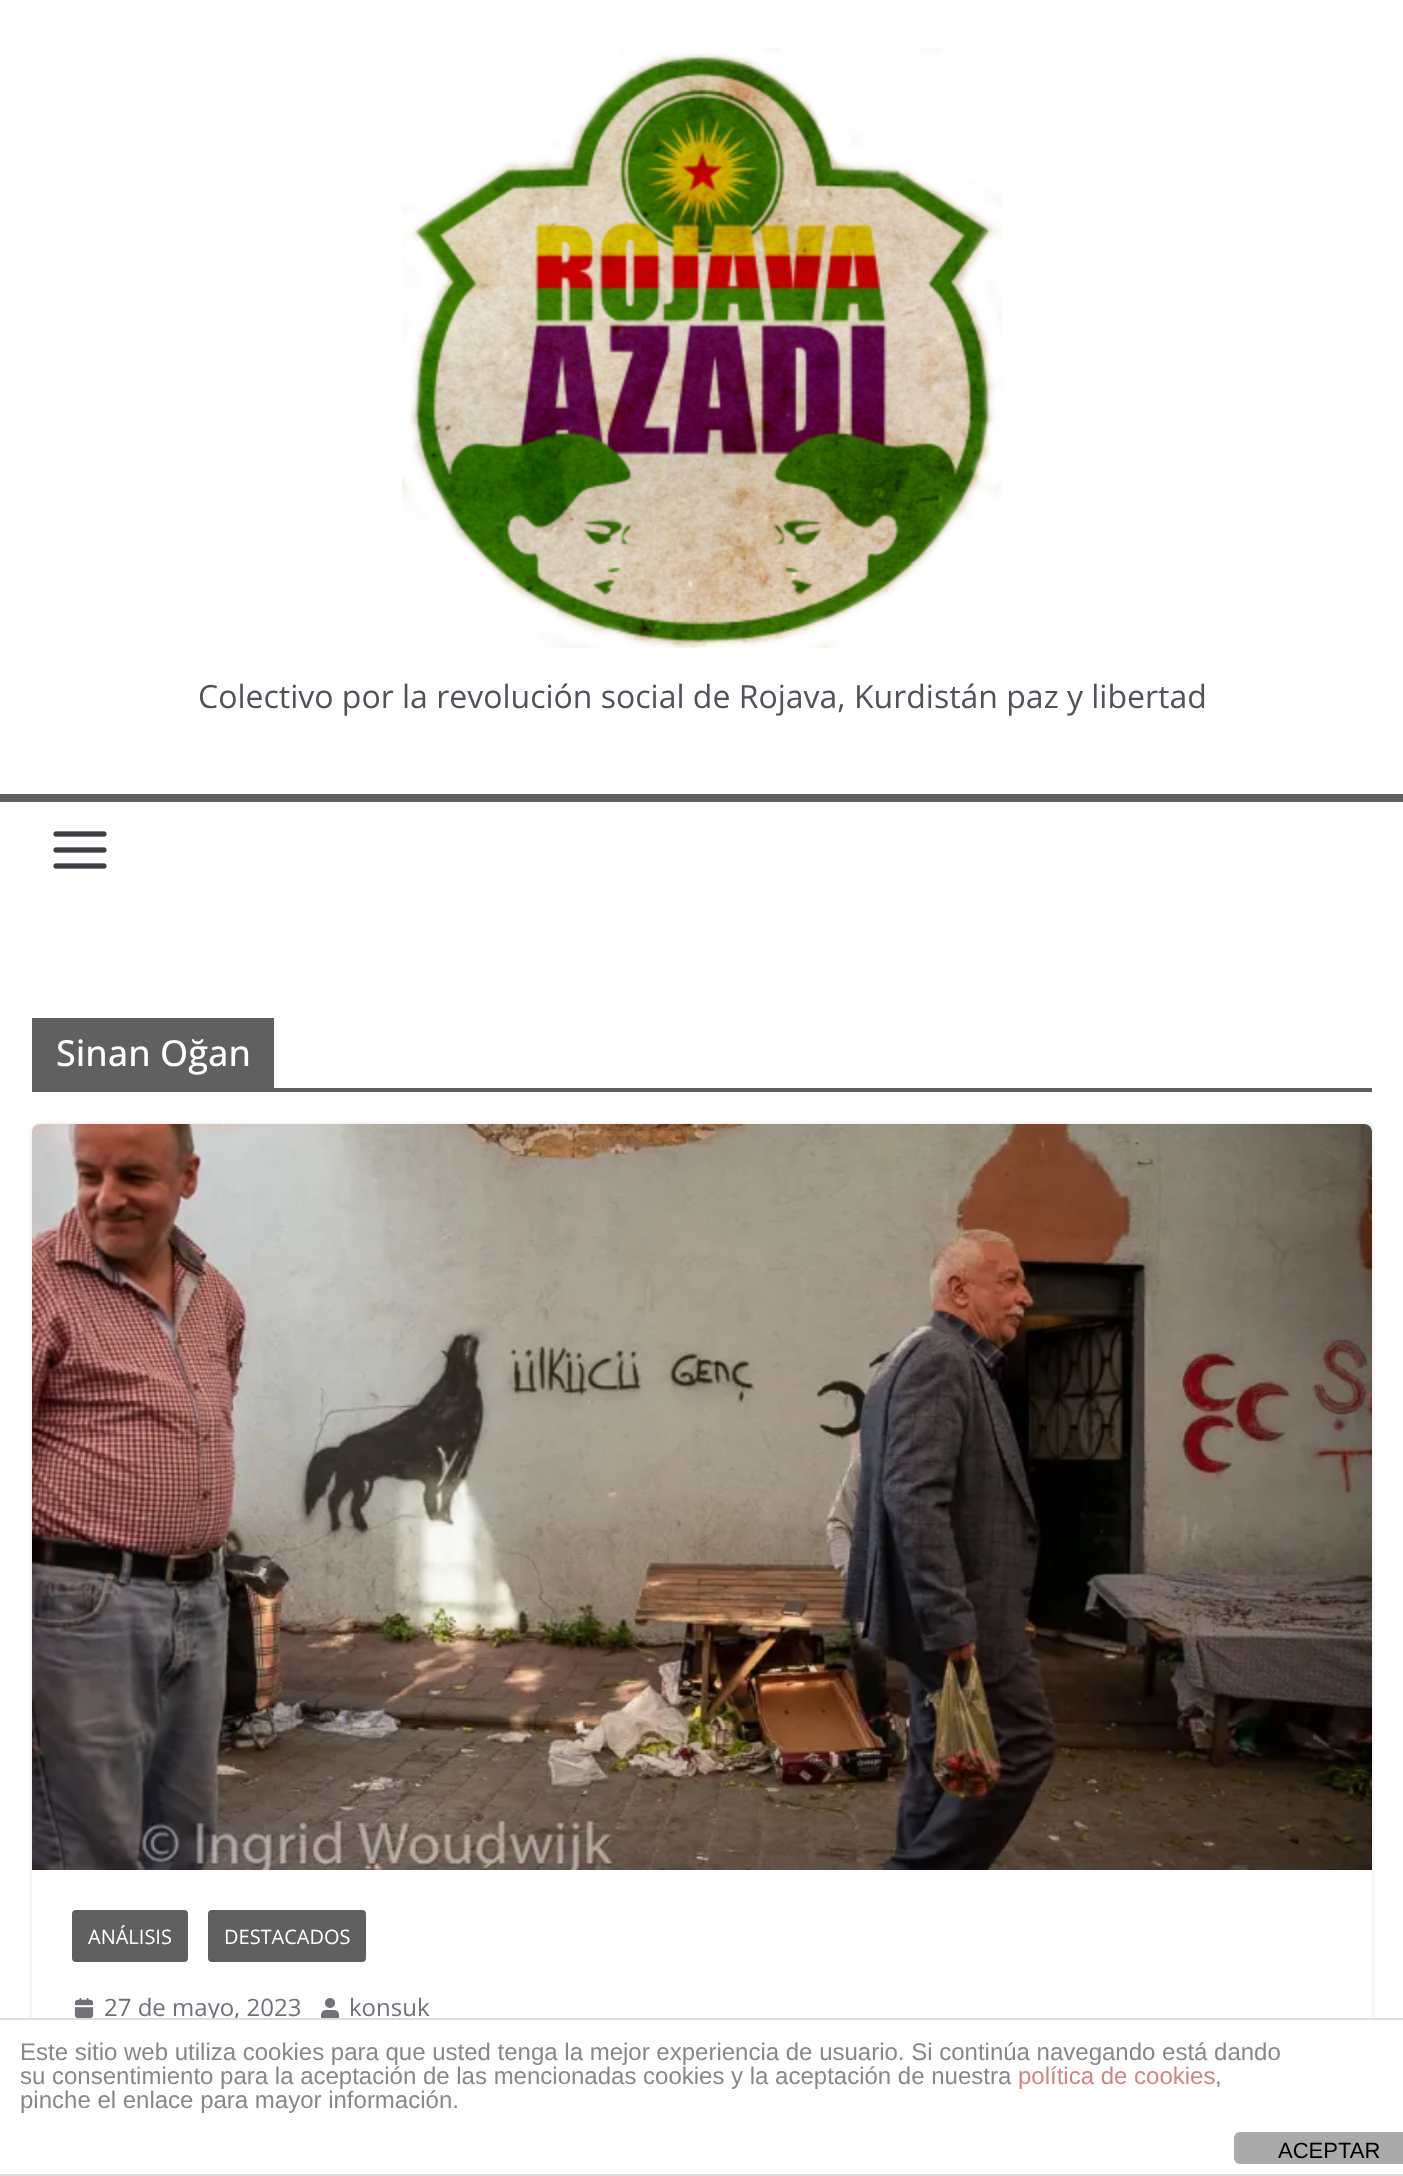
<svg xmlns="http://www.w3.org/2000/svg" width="1403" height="2176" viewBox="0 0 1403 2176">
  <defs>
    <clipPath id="clip1"><path d="M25 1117H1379V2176H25ZM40 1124H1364C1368.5 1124 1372 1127.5 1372 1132V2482C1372 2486.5 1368.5 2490 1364 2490H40C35.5 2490 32 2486.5 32 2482V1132C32 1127.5 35.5 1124 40 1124Z" clip-rule="evenodd"/></clipPath>
  </defs>
  <rect width="100%" height="100%" fill="#fff"/>
  <image x="402" y="48" width="600" height="600" href="img/1.png"/>
  <path d="M0 794h1403v8H0z" fill="#606060"/>
  <image x="53" y="831" width="54" height="38" href="img/2.png"/>
  <path d="M32 1088h1340v4H32z" fill="#606060"/>
  <path d="M32 1018h242v70H32z" fill="#606060"/>
  <g clip-path="url(#clip1)">
    <rect x="32" y="1124" width="1340" height="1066" rx="8" fill="#e4e4e7" filter="blur(2px)"/>
  </g>
  <image x="32" y="1124" width="1340" height="746" href="img/3.png"/>
  <rect x="72" y="1910" width="116" height="52" rx="4" fill="#606060"/>
  <rect x="208" y="1910" width="158" height="52" rx="4" fill="#606060"/>
  <image x="74" y="1998" width="20" height="20" href="img/4.png"/>
  <image x="321" y="1998" width="18" height="20" href="img/5.png"/>
  <path d="M0 2174h1403v2H0z" fill="#ddd"/>
  <text x="198" y="708" font-family="Open Sans" font-size="32" fill="#52525b">Colectivo por la revolución social de Rojava, Kurdistán paz y libertad</text>
  <text x="56" y="1066" font-family="Open Sans" font-size="36" font-weight="500" fill="#fff">Sinan Oğan</text>
  <g font-family="Open Sans" font-size="20" fill="#fff">
    <text x="88" y="1944">ANÁLISIS</text>
    <text x="224" y="1944">DESTACADOS</text>
  </g>
  <g font-family="Open Sans" font-size="24" fill="#71717a">
    <text x="104" y="2016">27 de mayo, 2023</text>
    <text x="349" y="2016">konsuk</text>
  </g>
  <path d="M29 2020h1346v154H29z" fill="#fff"/>
  <path d="M0 2018h1403v2H0z" fill="#ddd"/>
  <g font-family="Liberation Sans" font-size="24" fill="#888">
    <text x="20" y="2060">Este sitio web utiliza cookies para que usted tenga la mejor experiencia de usuario. Si continúa navegando está dando</text>
    <text x="20" y="2084">su consentimiento para la aceptación de las mencionadas cookies y la aceptación de nuestra</text>
  </g>
  <text x="1018" y="2084" font-family="Liberation Sans" font-size="24" fill="#c88">política de cookies</text>
  <g font-family="Liberation Sans" font-size="24" fill="#888">
    <text x="1215" y="2084">,</text>
    <text x="20" y="2108">pinche el enlace para mayor información.</text>
  </g>
  <rect x="1234" y="2132" width="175" height="32" rx="6" fill="#aaa"/>
  <text x="1278" y="2158" font-family="Liberation Sans" font-size="22" fill="#000">ACEPTAR</text>
</svg>
